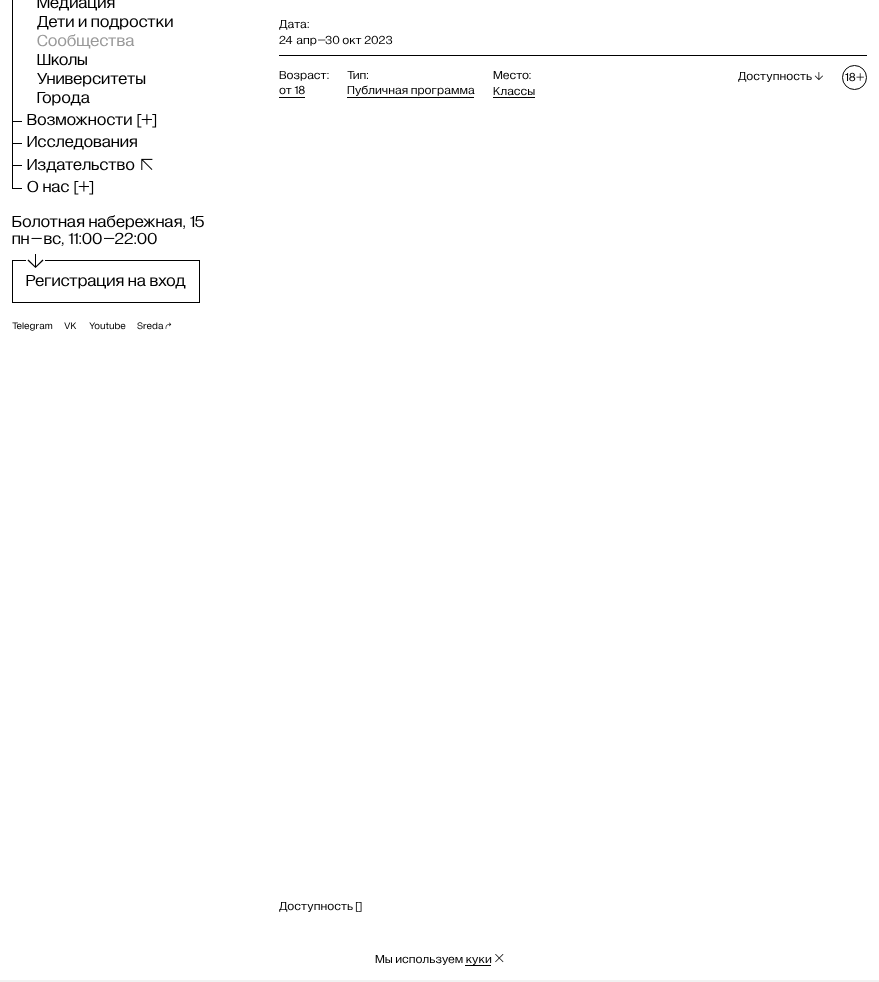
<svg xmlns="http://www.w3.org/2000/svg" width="879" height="982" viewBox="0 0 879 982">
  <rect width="100%" height="100%" fill="#fff"/>
  <path d="M12 0h1v188H12z" fill="#000"/>
  <path d="M12 121h10v1H12z" fill="#000"/>
  <path d="M12 143h10v1H12z" fill="#000"/>
  <path d="M12 165h10v1H12z" fill="#000"/>
  <image x="141" y="158" width="12" height="12" href="img/1.png"/>
  <path d="M12 188h10v1H12z" fill="#000"/>
  <path d="M279 55h588v1H279z" fill="#000"/>
  <path d="M279 97h26v1H279z" fill="#000"/>
  <path d="M347 97h127v1H347z" fill="#000"/>
  <path d="M493 97h42v1H493z" fill="#000"/>
  <image x="814" y="72" width="9" height="9" href="img/2.png"/>
  <circle cx="854.5" cy="77.5" r="12" fill="none" stroke="#000"/>
  <path d="M45 261H199V302H13V261H26V260H12V303H200V260H45Z" fill="#000" fill-rule="evenodd"/>
  <path d="M27.5 260.5L28.5 259.5L35 266V254H36V266L42.5 259.5L43.5 260.5L35.5 268Z" fill="#000"/>
  <image x="165" y="322" width="7" height="7" href="img/3.png"/>
  <path d="M-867 980V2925H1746V980H867V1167H12V980Z" fill="#f1f1f1"/>
  <path d="M12 980h855v2H12z" fill="#f1f1f1"/>
  <path d="M465 965h26v1H465z" fill="#000"/>
  <image x="495" y="954" width="9" height="9" href="img/4.png"/>
  <g font-family="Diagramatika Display" font-size="17.1" letter-spacing="0.3" fill="#000">
    <text x="37" y="8">Медиация</text>
    <text x="37" y="27">Дети и подростки</text>
  </g>
  <text x="37" y="46" font-family="Diagramatika Display" font-size="17.1" letter-spacing="0.3" fill="#999">Сообщества</text>
  <g font-family="Diagramatika Display" font-size="17.1" letter-spacing="0.3" fill="#000">
    <text x="37" y="65">Школы</text>
    <text x="37" y="84">Университеты</text>
    <text x="37" y="103">Города</text>
    <text x="27" y="125">Возможности [+]</text>
    <text x="27" y="147">Исследования</text>
    <text x="27" y="170">Издательство</text>
    <text x="27" y="192">О нас [+]</text>
  </g>
  <g font-family="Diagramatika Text" font-size="12.25" fill="#000">
    <text x="279" y="28">Дата:</text>
    <text x="279" y="44" word-spacing="1">24 апр–</text>
    <text x="325" y="44">30 окт 2023</text>
    <text x="279" y="79">Возраст:</text>
    <text x="279" y="94">от 18</text>
    <text x="347" y="79">Тип:</text>
    <text x="347" y="94">Публичная программа</text>
    <text x="493" y="79">Место:</text>
    <text x="493" y="95">Классы</text>
    <text x="738" y="80">Доступность</text>
    <text x="845" y="81">18+</text>
    <text x="279" y="910">Доступность</text>
  </g>
  <text x="355" y="910" font-family="Diagramatika Display" font-size="12.25" fill="#000">[]</text>
  <g font-family="Diagramatika Display" font-size="17.1" letter-spacing="0.3" fill="#000">
    <text x="12" y="227">Болотная набережная, 15</text>
    <text x="12" y="244">пн–вс, 11:00–22:00</text>
    <text x="26" y="286">Регистрация на вход</text>
  </g>
  <g font-family="Diagramatika Text" font-size="10" fill="#000">
    <text x="12" y="329">Telegram</text>
    <text x="64" y="329">VK</text>
    <text x="89" y="329">Youtube</text>
    <text x="137" y="329">Sreda</text>
  </g>
  <text x="375" y="963" font-family="Diagramatika Text" font-size="12.25" fill="#000">Мы используем куки</text>
</svg>
